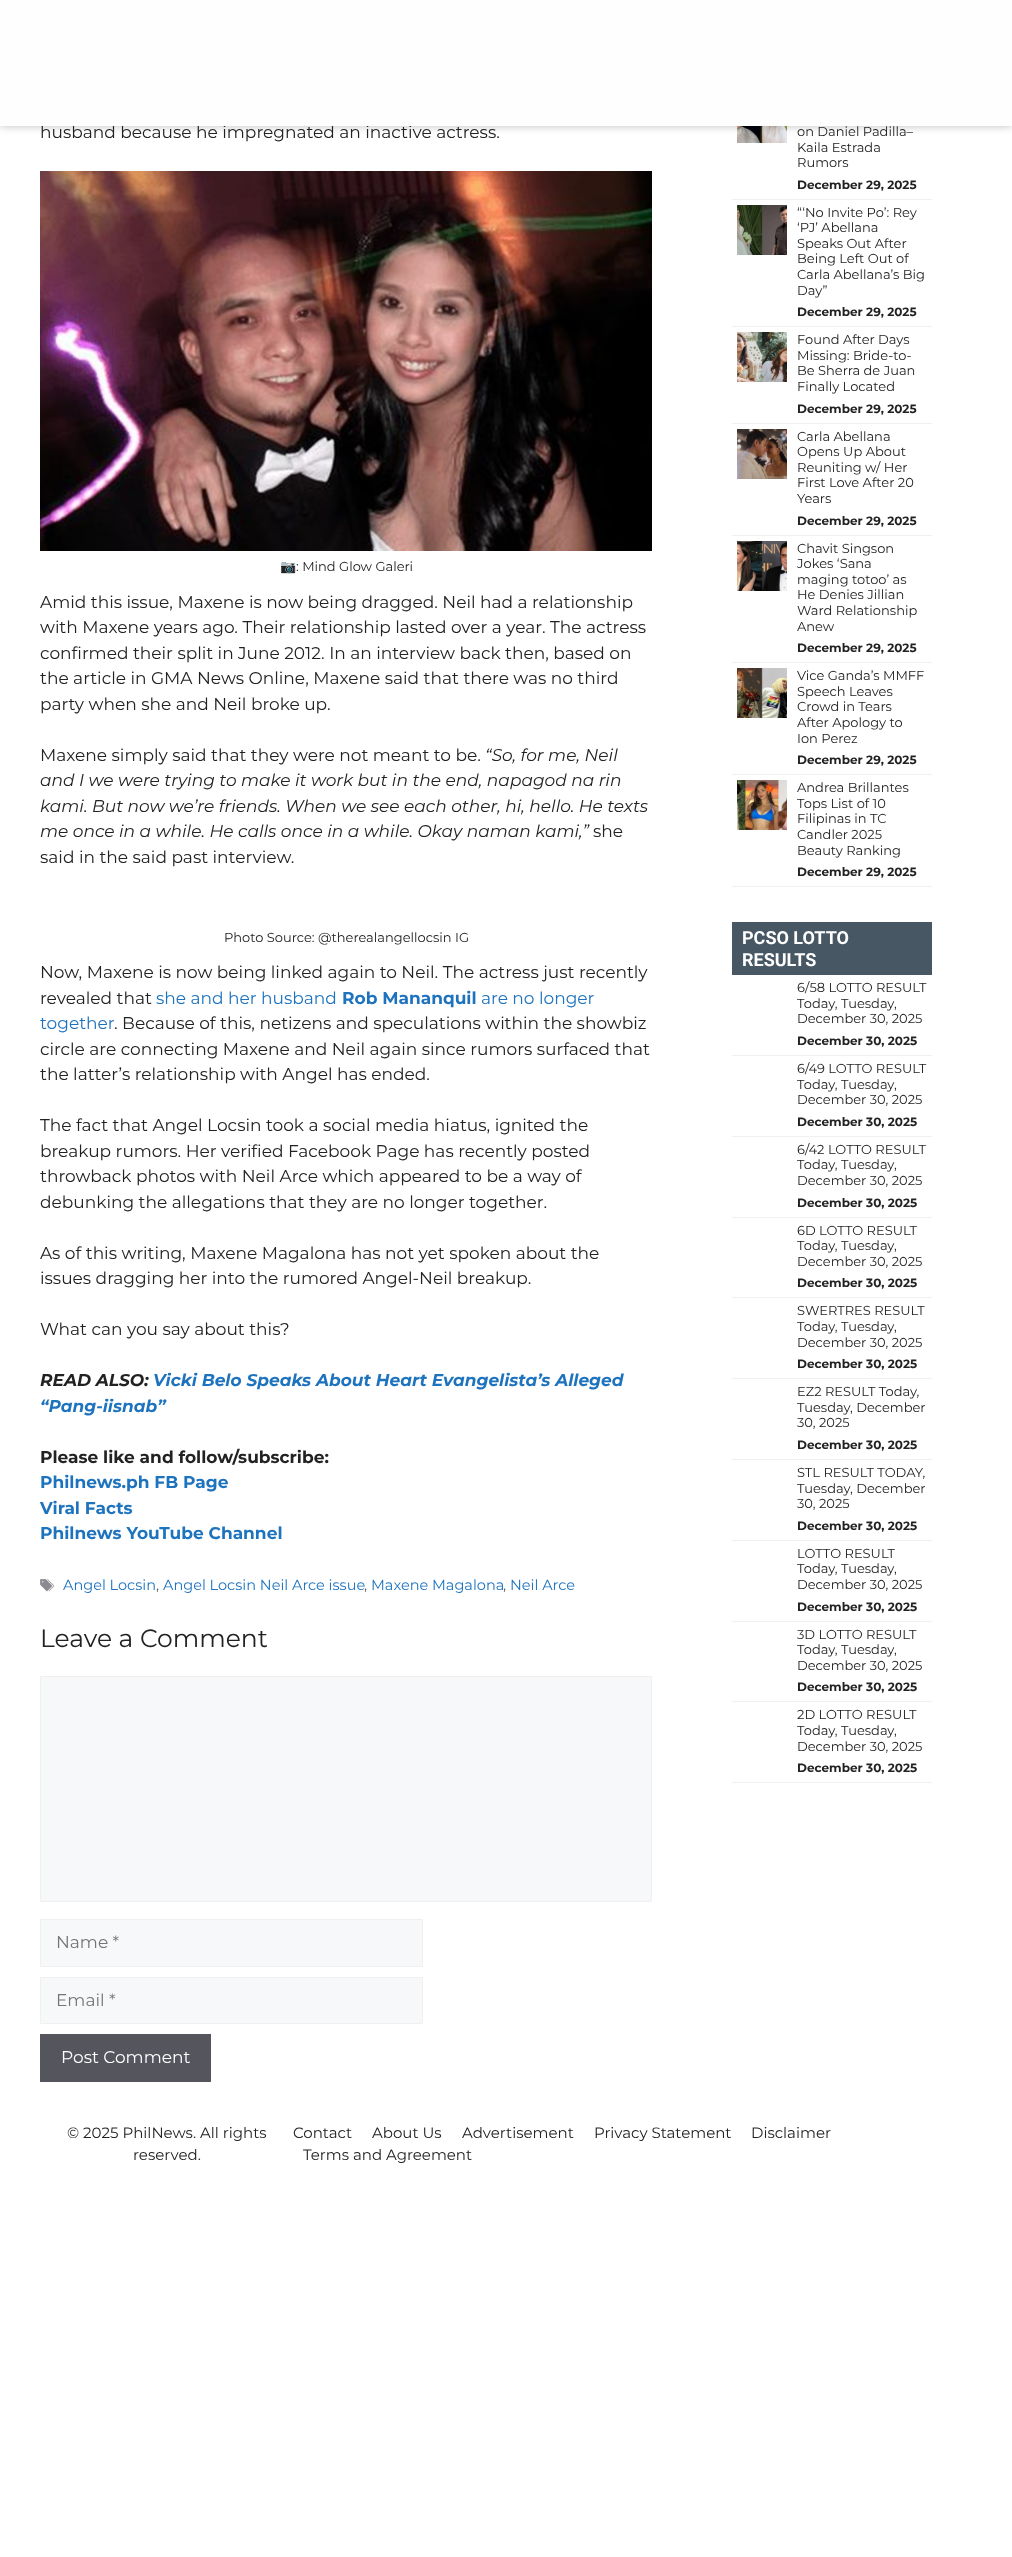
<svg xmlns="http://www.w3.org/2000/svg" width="1012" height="2557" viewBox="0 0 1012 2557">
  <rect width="100%" height="100%" fill="#fff"/>
  <image x="737" y="126" width="50" height="17" href="img/3.png"/>
  <path d="M0 0h1012v126H0z" fill="#00000042" filter="blur(4px)"/>
  <image x="40" y="171" width="612" height="380" href="img/1.png"/>
  <image x="40" y="1579" width="14" height="13" href="img/2.png"/>
  <path d="M40.5 1676.5h611v225H40.5z" fill="#f7f8f9" stroke="#f0f0f0"/>
  <path d="M40.5 1919.5h382v47H40.5z" fill="#f7f8f9" stroke="#f0f0f0"/>
  <path d="M40.5 1977.5h382v46H40.5z" fill="#f7f8f9" stroke="#f0f0f0"/>
  <path d="M40 2034h171v48H40z" fill="#55555e"/>
  <path d="M732 199h200v1H732z" fill="#f1f1f1"/>
  <path d="M732 326h200v1H732z" fill="#f1f1f1"/>
  <image x="737" y="205" width="50" height="50" href="img/4.png"/>
  <path d="M732 423h200v1H732z" fill="#f1f1f1"/>
  <image x="737" y="332" width="50" height="50" href="img/5.png"/>
  <path d="M732 535h200v1H732z" fill="#f1f1f1"/>
  <image x="737" y="429" width="50" height="50" href="img/6.png"/>
  <path d="M732 662h200v1H732z" fill="#f1f1f1"/>
  <image x="737" y="541" width="50" height="50" href="img/7.png"/>
  <path d="M732 774h200v1H732z" fill="#f1f1f1"/>
  <image x="737" y="668" width="50" height="50" href="img/8.png"/>
  <path d="M732 886h200v1H732z" fill="#f1f1f1"/>
  <image x="737" y="780" width="50" height="50" href="img/9.png"/>
  <path d="M732 922h200v53H732z" fill="#475764"/>
  <path d="M732 1055h200v1H732z" fill="#f1f1f1"/>
  <path d="M732 1136h200v1H732z" fill="#f1f1f1"/>
  <path d="M732 1217h200v1H732z" fill="#f1f1f1"/>
  <path d="M732 1297h200v1H732z" fill="#f1f1f1"/>
  <path d="M732 1378h200v1H732z" fill="#f1f1f1"/>
  <path d="M732 1459h200v1H732z" fill="#f1f1f1"/>
  <path d="M732 1540h200v1H732z" fill="#f1f1f1"/>
  <path d="M732 1621h200v1H732z" fill="#f1f1f1"/>
  <path d="M732 1701h200v1H732z" fill="#f1f1f1"/>
  <path d="M732 1782h200v1H732z" fill="#f1f1f1"/>
  <text x="40" y="138" font-family="Montserrat" font-size="17" fill="#222">husband because he impregnated an inactive actress.</text>
  <path d="M0 0h1012v126H0z" fill="#fefefe"/>
  <text x="280" y="571" font-family="Noto Color Emoji" font-size="13" fill="#222">📷</text>
  <text x="296" y="571" font-family="Montserrat" font-size="13" fill="#222">: Mind Glow Galeri</text>
  <g font-family="Montserrat" font-size="17" fill="#222">
    <text x="40" y="608">Amid this issue, Maxene is now being dragged. Neil had a relationship</text>
    <text x="40" y="633">with Maxene years ago. Their relationship lasted over a year. The actress</text>
    <text x="40" y="659">confirmed their split in June 2012. In an interview back then, based on</text>
    <text x="40" y="684">the article in GMA News Online, Maxene said that there was no third</text>
    <text x="40" y="710">party when she and Neil broke up.</text>
    <text x="40" y="761">Maxene simply said that they were not meant to be.</text>
  </g>
  <g font-family="Montserrat" font-size="17" font-style="italic" fill="#222">
    <text x="485" y="761">“So, for me, Neil</text>
    <text x="40" y="786">and I we were trying to make it work but in the end, napagod na rin</text>
    <text x="40" y="812">kami. But now we’re friends. When we see each other, hi, hello. He texts</text>
    <text x="40" y="837">me once in a while. He calls once in a while. Okay naman kami,”</text>
  </g>
  <g font-family="Montserrat" font-size="17" fill="#222">
    <text x="593" y="837">she</text>
    <text x="40" y="863">said in the said past interview.</text>
  </g>
  <text x="224" y="942" font-family="Montserrat" font-size="13" fill="#222">Photo Source: @therealangellocsin IG</text>
  <g font-family="Montserrat" font-size="17" fill="#222">
    <text x="40" y="978">Now, Maxene is now being linked again to Neil. The actress just recently</text>
    <text x="40" y="1004">revealed that</text>
  </g>
  <text x="156" y="1004" font-family="Montserrat" font-size="17" fill="#1e73be">she and her husband</text>
  <text x="342" y="1004" font-family="Montserrat" font-size="17" font-weight="bold" fill="#1e73be">Rob Mananquil</text>
  <g font-family="Montserrat" font-size="17" fill="#1e73be">
    <text x="481" y="1004">are no longer</text>
    <text x="40" y="1029">together</text>
  </g>
  <g font-family="Montserrat" font-size="17" fill="#222">
    <text x="114" y="1029">. Because of this, netizens and speculations within the showbiz</text>
    <text x="40" y="1055">circle are connecting Maxene and Neil again since rumors surfaced that</text>
    <text x="40" y="1080">the latter’s relationship with Angel has ended.</text>
    <text x="40" y="1131">The fact that Angel Locsin took a social media hiatus, ignited the</text>
    <text x="40" y="1157">breakup rumors. Her verified Facebook Page has recently posted</text>
    <text x="40" y="1182">throwback photos with Neil Arce which appeared to be a way of</text>
    <text x="40" y="1208">debunking the allegations that they are no longer together.</text>
    <text x="40" y="1259">As of this writing, Maxene Magalona has not yet spoken about the</text>
    <text x="40" y="1284">issues dragging her into the rumored Angel-Neil breakup.</text>
    <text x="40" y="1335">What can you say about this?</text>
  </g>
  <text x="40" y="1386" font-family="Montserrat" font-size="17" font-weight="bold" font-style="italic" fill="#222">READ ALSO:</text>
  <g font-family="Montserrat" font-size="17" font-weight="bold" font-style="italic" fill="#1e73be">
    <text x="153" y="1386">Vicki Belo Speaks About Heart Evangelista’s Alleged</text>
    <text x="40" y="1412">“Pang-iisnab”</text>
  </g>
  <text x="40" y="1463" font-family="Montserrat" font-size="17" font-weight="bold" fill="#222">Please like and follow/subscribe:</text>
  <g font-family="Montserrat" font-size="17" font-weight="bold" fill="#1e73be">
    <text x="40" y="1488">Philnews.ph FB Page</text>
    <text x="40" y="1514">Viral Facts</text>
    <text x="40" y="1539">Philnews YouTube Channel</text>
  </g>
  <text x="63" y="1590" font-family="Montserrat" font-size="14.5" fill="#1e73be">Angel Locsin</text>
  <text x="156" y="1590" font-family="Montserrat" font-size="14.5" fill="#575760">,</text>
  <text x="163" y="1590" font-family="Montserrat" font-size="14.5" fill="#1e73be">Angel Locsin Neil Arce issue</text>
  <text x="364" y="1590" font-family="Montserrat" font-size="14.5" fill="#575760">,</text>
  <text x="371" y="1590" font-family="Montserrat" font-size="14.5" fill="#1e73be">Maxene Magalona</text>
  <text x="503" y="1590" font-family="Montserrat" font-size="14.5" fill="#575760">,</text>
  <text x="510" y="1590" font-family="Montserrat" font-size="14.5" fill="#1e73be">Neil Arce</text>
  <text x="40" y="1647" font-family="Montserrat" font-size="25" fill="#222">Leave a Comment</text>
  <g font-family="Montserrat" font-size="17" fill="#757575">
    <text x="56" y="1948">Name *</text>
    <text x="56" y="2006">Email *</text>
  </g>
  <text x="61" y="2063" font-family="Montserrat" font-size="17" fill="#fff">Post Comment</text>
  <g font-family="Montserrat" font-size="13" fill="#222">
    <text x="797" y="136">on Daniel Padilla–</text>
    <text x="797" y="152">Kaila Estrada</text>
    <text x="797" y="167">Rumors</text>
  </g>
  <text x="797" y="189" font-family="Montserrat" font-size="12" font-weight="bold" fill="#222">December 29, 2025</text>
  <g font-family="Montserrat" font-size="13" fill="#222">
    <text x="797" y="217">“‘No Invite Po’: Rey</text>
    <text x="797" y="232">‘PJ’ Abellana</text>
    <text x="797" y="248">Speaks Out After</text>
    <text x="797" y="263">Being Left Out of</text>
    <text x="797" y="279">Carla Abellana’s Big</text>
    <text x="797" y="295">Day”</text>
  </g>
  <text x="797" y="316" font-family="Montserrat" font-size="12" font-weight="bold" fill="#222">December 29, 2025</text>
  <g font-family="Montserrat" font-size="13" fill="#222">
    <text x="797" y="344">Found After Days</text>
    <text x="797" y="360">Missing: Bride-to-</text>
    <text x="797" y="375">Be Sherra de Juan</text>
    <text x="797" y="391">Finally Located</text>
  </g>
  <text x="797" y="413" font-family="Montserrat" font-size="12" font-weight="bold" fill="#222">December 29, 2025</text>
  <g font-family="Montserrat" font-size="13" fill="#222">
    <text x="797" y="441">Carla Abellana</text>
    <text x="797" y="456">Opens Up About</text>
    <text x="797" y="472">Reuniting w/ Her</text>
    <text x="797" y="487">First Love After 20</text>
    <text x="797" y="503">Years</text>
  </g>
  <text x="797" y="525" font-family="Montserrat" font-size="12" font-weight="bold" fill="#222">December 29, 2025</text>
  <g font-family="Montserrat" font-size="13" fill="#222">
    <text x="797" y="553">Chavit Singson</text>
    <text x="797" y="568">Jokes ‘Sana</text>
    <text x="797" y="584">maging totoo’ as</text>
    <text x="797" y="599">He Denies Jillian</text>
    <text x="797" y="615">Ward Relationship</text>
    <text x="797" y="631">Anew</text>
  </g>
  <text x="797" y="652" font-family="Montserrat" font-size="12" font-weight="bold" fill="#222">December 29, 2025</text>
  <g font-family="Montserrat" font-size="13" fill="#222">
    <text x="797" y="680">Vice Ganda’s MMFF</text>
    <text x="797" y="696">Speech Leaves</text>
    <text x="797" y="711">Crowd in Tears</text>
    <text x="797" y="727">After Apology to</text>
    <text x="797" y="743">Ion Perez</text>
  </g>
  <text x="797" y="764" font-family="Montserrat" font-size="12" font-weight="bold" fill="#222">December 29, 2025</text>
  <g font-family="Montserrat" font-size="13" fill="#222">
    <text x="797" y="792">Andrea Brillantes</text>
    <text x="797" y="808">Tops List of 10</text>
    <text x="797" y="823">Filipinas in TC</text>
    <text x="797" y="839">Candler 2025</text>
    <text x="797" y="855">Beauty Ranking</text>
  </g>
  <text x="797" y="876" font-family="Montserrat" font-size="12" font-weight="bold" fill="#222">December 29, 2025</text>
  <g font-family="Roboto" font-size="18" font-weight="bold" fill="#fff">
    <text x="742" y="944">PCSO LOTTO</text>
    <text x="742" y="966">RESULTS</text>
  </g>
  <g font-family="Montserrat" font-size="13" fill="#222">
    <text x="797" y="992">6/58 LOTTO RESULT</text>
    <text x="797" y="1008">Today, Tuesday,</text>
    <text x="797" y="1023">December 30, 2025</text>
  </g>
  <text x="797" y="1045" font-family="Montserrat" font-size="12" font-weight="bold" fill="#222">December 30, 2025</text>
  <g font-family="Montserrat" font-size="13" fill="#222">
    <text x="797" y="1073">6/49 LOTTO RESULT</text>
    <text x="797" y="1089">Today, Tuesday,</text>
    <text x="797" y="1104">December 30, 2025</text>
  </g>
  <text x="797" y="1126" font-family="Montserrat" font-size="12" font-weight="bold" fill="#222">December 30, 2025</text>
  <g font-family="Montserrat" font-size="13" fill="#222">
    <text x="797" y="1154">6/42 LOTTO RESULT</text>
    <text x="797" y="1169">Today, Tuesday,</text>
    <text x="797" y="1185">December 30, 2025</text>
  </g>
  <text x="797" y="1207" font-family="Montserrat" font-size="12" font-weight="bold" fill="#222">December 30, 2025</text>
  <g font-family="Montserrat" font-size="13" fill="#222">
    <text x="797" y="1235">6D LOTTO RESULT</text>
    <text x="797" y="1250">Today, Tuesday,</text>
    <text x="797" y="1266">December 30, 2025</text>
  </g>
  <text x="797" y="1287" font-family="Montserrat" font-size="12" font-weight="bold" fill="#222">December 30, 2025</text>
  <g font-family="Montserrat" font-size="13" fill="#222">
    <text x="797" y="1315">SWERTRES RESULT</text>
    <text x="797" y="1331">Today, Tuesday,</text>
    <text x="797" y="1347">December 30, 2025</text>
  </g>
  <text x="797" y="1368" font-family="Montserrat" font-size="12" font-weight="bold" fill="#222">December 30, 2025</text>
  <g font-family="Montserrat" font-size="13" fill="#222">
    <text x="797" y="1396">EZ2 RESULT Today,</text>
    <text x="797" y="1412">Tuesday, December</text>
    <text x="797" y="1427">30, 2025</text>
  </g>
  <text x="797" y="1449" font-family="Montserrat" font-size="12" font-weight="bold" fill="#222">December 30, 2025</text>
  <g font-family="Montserrat" font-size="13" fill="#222">
    <text x="797" y="1477">STL RESULT TODAY,</text>
    <text x="797" y="1493">Tuesday, December</text>
    <text x="797" y="1508">30, 2025</text>
  </g>
  <text x="797" y="1530" font-family="Montserrat" font-size="12" font-weight="bold" fill="#222">December 30, 2025</text>
  <g font-family="Montserrat" font-size="13" fill="#222">
    <text x="797" y="1558">LOTTO RESULT</text>
    <text x="797" y="1573">Today, Tuesday,</text>
    <text x="797" y="1589">December 30, 2025</text>
  </g>
  <text x="797" y="1611" font-family="Montserrat" font-size="12" font-weight="bold" fill="#222">December 30, 2025</text>
  <g font-family="Montserrat" font-size="13" fill="#222">
    <text x="797" y="1639">3D LOTTO RESULT</text>
    <text x="797" y="1654">Today, Tuesday,</text>
    <text x="797" y="1670">December 30, 2025</text>
  </g>
  <text x="797" y="1691" font-family="Montserrat" font-size="12" font-weight="bold" fill="#222">December 30, 2025</text>
  <g font-family="Montserrat" font-size="13" fill="#222">
    <text x="797" y="1719">2D LOTTO RESULT</text>
    <text x="797" y="1735">Today, Tuesday,</text>
    <text x="797" y="1751">December 30, 2025</text>
  </g>
  <text x="797" y="1772" font-family="Montserrat" font-size="12" font-weight="bold" fill="#222">December 30, 2025</text>
  <g font-family="Montserrat" font-size="15" fill="#222">
    <text x="67" y="2138">© 2025 PhilNews. All rights</text>
    <text x="133" y="2160">reserved.</text>
    <text x="293" y="2138">Contact</text>
    <text x="372" y="2138">About Us</text>
    <text x="462" y="2138">Advertisement</text>
    <text x="594" y="2138">Privacy Statement</text>
    <text x="751" y="2138">Disclaimer</text>
    <text x="303" y="2160">Terms and Agreement</text>
  </g>
</svg>
